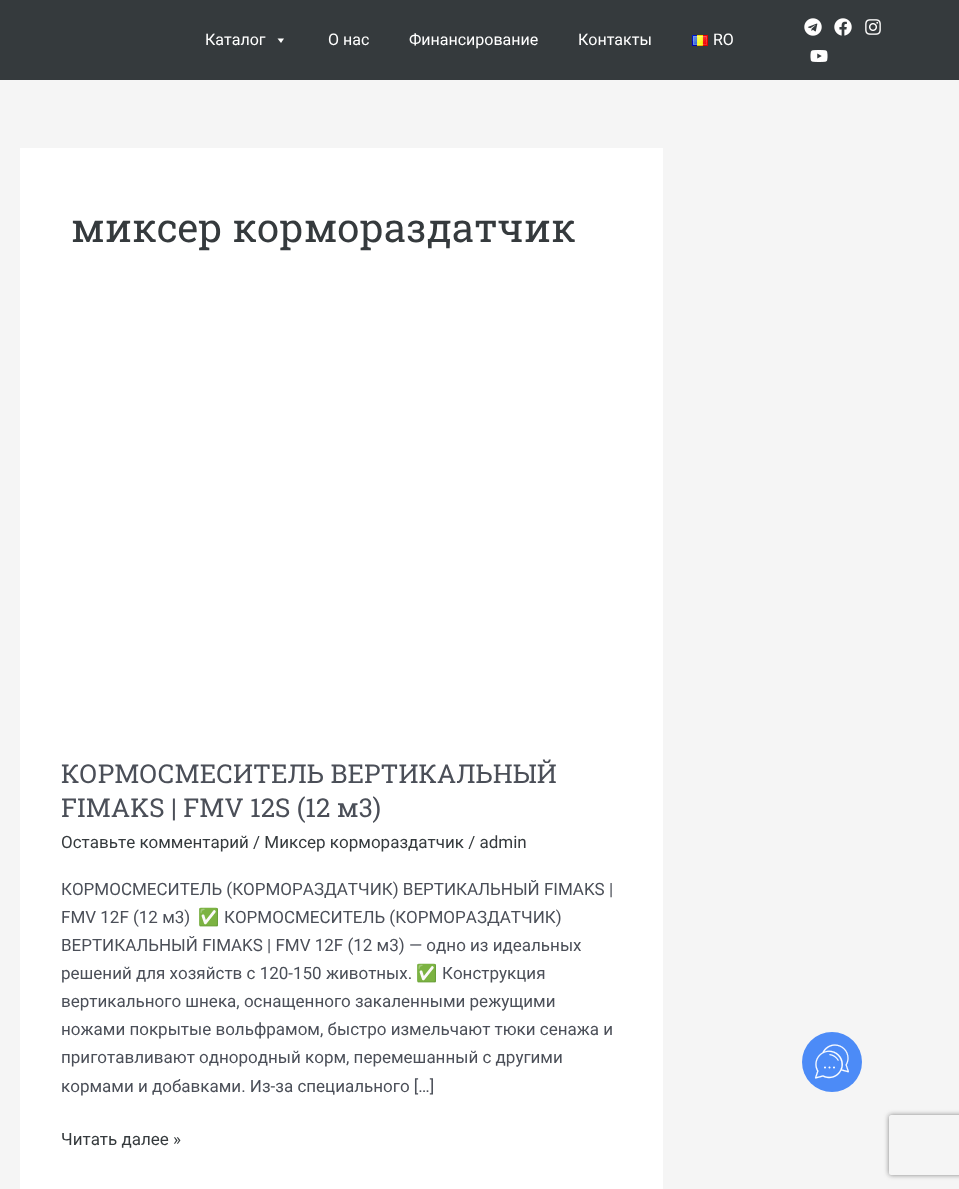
<svg xmlns="http://www.w3.org/2000/svg" width="959" height="1189" viewBox="0 0 959 1189">
  <style>*{font-kerning:none!important;font-variant-ligatures:none!important}</style>
  <defs>
    <clipPath id="clip1"><path d="M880 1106H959V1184H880ZM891 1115H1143C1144 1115 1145 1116 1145 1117V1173C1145 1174 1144 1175 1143 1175H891C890 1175 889 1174 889 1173V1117C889 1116 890 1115 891 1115Z" clip-rule="evenodd"/></clipPath>
  </defs>
  <rect width="100%" height="100%" fill="#f5f5f5"/>
  <path d="M0 0h959v80H0z" fill="#353a3d"/>
  <path d="M284 38.5L281 43L277.5 38.5Z" fill="#fff"/>
  <image x="692" y="35" width="16" height="11" href="img/1.png"/>
  <image x="804" y="18" width="18" height="18" href="img/2.png"/>
  <image x="834" y="18" width="18" height="18" href="img/3.png"/>
  <image x="865" y="19" width="16" height="16" href="img/4.png"/>
  <image x="810" y="50" width="18" height="12" href="img/5.png"/>
  <path d="M20 148h643v1041H20z" fill="#fff"/>
  <circle cx="832" cy="1062" r="30" fill="#4c8bf7"/>
  <image x="814" y="1044" width="35" height="35" href="img/6.png"/>
  <g clip-path="url(#clip1)">
    <rect x="889" y="1115" width="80" height="60" rx="2" fill="#808080" filter="blur(2.5px)"/>
  </g>
  <g font-family="Roboto" font-size="16" fill="#fff">
    <text x="205" y="45">Каталог</text>
    <text x="328" y="45">О нас</text>
    <text x="409" y="45">Финансирование</text>
    <text x="578" y="45">Контакты</text>
    <text x="713" y="45">RO</text>
  </g>
  <text x="71" y="242" font-family="Roboto Slab" font-size="40" fill="#353a3d">миксер кормораздатчик</text>
  <g font-family="Roboto Slab" font-size="26" fill="#4b4f58">
    <text x="61" y="783">КОРМОСМЕСИТЕЛЬ ВЕРТИКАЛЬНЫЙ</text>
    <text x="61" y="817">FIMAKS | FMV 12S (12 м3)</text>
  </g>
  <text x="61" y="848" font-family="Roboto" font-size="17" fill="#353a3d">Оставьте комментарий / Миксер кормораздатчик / admin</text>
  <g font-family="Roboto" font-size="17" fill="#4b4f58">
    <text x="61" y="895">КОРМОСМЕСИТЕЛЬ (КОРМОРАЗДАТЧИК) ВЕРТИКАЛЬНЫЙ FIMAKS |</text>
    <text x="61" y="923">FMV 12F (12 м3)</text>
  </g>
  <text x="198" y="923" font-family="Noto Color Emoji" font-size="17" fill="#4b4f58">✅</text>
  <g font-family="Roboto" font-size="17" fill="#4b4f58">
    <text x="224" y="923">КОРМОСМЕСИТЕЛЬ (КОРМОРАЗДАТЧИК)</text>
    <text x="61" y="951">ВЕРТИКАЛЬНЫЙ FIMAKS | FMV 12F (12 м3) — одно из идеальных</text>
    <text x="61" y="979">решений для хозяйств с 120-150 животных.</text>
  </g>
  <text x="416" y="979" font-family="Noto Color Emoji" font-size="17" fill="#4b4f58">✅</text>
  <g font-family="Roboto" font-size="17" fill="#4b4f58">
    <text x="442" y="979">Конструкция</text>
    <text x="61" y="1007">вертикального шнека, оснащенного закаленными режущими</text>
    <text x="61" y="1035">ножами покрытые вольфрамом, быстро измельчают тюки сенажа и</text>
    <text x="61" y="1063">приготавливают однородный корм, перемешанный с другими</text>
    <text x="61" y="1092">кормами и добавками. Из-за специального […]</text>
  </g>
  <text x="61" y="1145" font-family="Roboto" font-size="17" fill="#353a3d">Читать далее »</text>
</svg>
